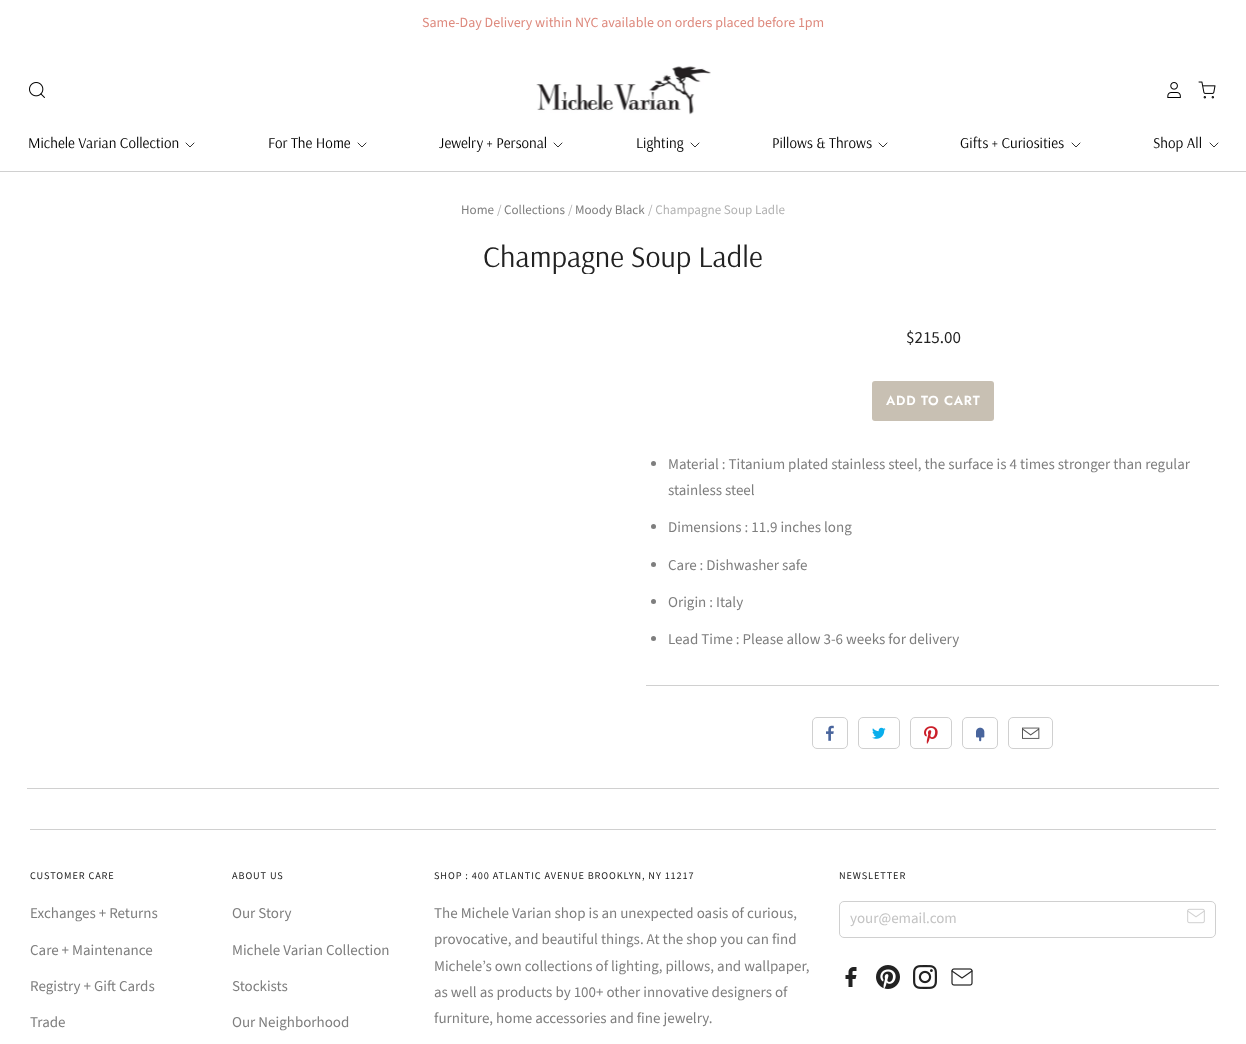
<svg xmlns="http://www.w3.org/2000/svg" width="1246" height="1044" viewBox="0 0 1246 1044">
  <defs>
    <clipPath id="clip1"><path d="M235 238h776v36H235z"/></clipPath>
  </defs>
  <rect width="100%" height="100%" fill="#fff"/>
  <path d="M0 171h1246v1H0z" fill="#d0d0d0"/>
  <image x="29" y="82" width="16" height="16" href="img/1.png"/>
  <image x="536" y="66" width="175" height="49" href="img/2.png"/>
  <image x="1167" y="82" width="14" height="16" href="img/3.png"/>
  <image x="1198" y="81" width="18" height="18" href="img/4.png"/>
  <path d="M186 143L190 147L194 143" fill="none" stroke="#000" stroke-width="0.8" stroke-linecap="round" stroke-linejoin="round"/>
  <path d="M358 143L362 147L366 143" fill="none" stroke="#000" stroke-width="0.8" stroke-linecap="round" stroke-linejoin="round"/>
  <path d="M554 143L558 147L562 143" fill="none" stroke="#000" stroke-width="0.8" stroke-linecap="round" stroke-linejoin="round"/>
  <path d="M691 143L695 147L699 143" fill="none" stroke="#000" stroke-width="0.8" stroke-linecap="round" stroke-linejoin="round"/>
  <path d="M879 143L883 147L887 143" fill="none" stroke="#000" stroke-width="0.8" stroke-linecap="round" stroke-linejoin="round"/>
  <path d="M1072 143L1076 147L1080 143" fill="none" stroke="#000" stroke-width="0.8" stroke-linecap="round" stroke-linejoin="round"/>
  <path d="M1210 143L1214 147L1218 143" fill="none" stroke="#000" stroke-width="0.8" stroke-linecap="round" stroke-linejoin="round"/>
  <rect x="872" y="381" width="122" height="40" rx="3" fill="#c8c0b3"/>
  <path d="M646 685h573v1H646z" fill="#d0d0d0"/>
  <circle cx="653.5" cy="463.5" r="2.5" fill="#7e7e7e"/>
  <circle cx="653.5" cy="526.5" r="2.5" fill="#7e7e7e"/>
  <circle cx="653.5" cy="564.5" r="2.5" fill="#7e7e7e"/>
  <circle cx="653.5" cy="601.5" r="2.5" fill="#7e7e7e"/>
  <circle cx="653.5" cy="638.5" r="2.5" fill="#7e7e7e"/>
  <rect x="812.5" y="717.5" width="35" height="31" rx="4.5" fill="none" stroke="#d0d0d0"/>
  <image x="826" y="725" width="8" height="16" href="img/5.png"/>
  <rect x="858.5" y="717.5" width="41" height="31" rx="4.5" fill="none" stroke="#d0d0d0"/>
  <image x="872" y="727" width="14" height="12" href="img/6.png"/>
  <rect x="910.5" y="717.5" width="41" height="31" rx="4.5" fill="none" stroke="#d0d0d0"/>
  <image x="924" y="726" width="14" height="18" href="img/7.png"/>
  <rect x="962.5" y="717.5" width="35" height="31" rx="4.5" fill="none" stroke="#d0d0d0"/>
  <image x="976" y="727" width="9" height="15" href="img/8.png"/>
  <rect x="1008.5" y="717.5" width="44" height="31" rx="4.5" fill="none" stroke="#d0d0d0"/>
  <image x="1022" y="727" width="18" height="12" href="img/9.png"/>
  <path d="M27 788h1192v1H27z" fill="#d0d0d0"/>
  <path d="M30 829h1186v1H30z" fill="#d0d0d0"/>
  <rect x="839.5" y="901.5" width="376" height="36" rx="4.5" fill="none" stroke="#d0d0d0"/>
  <image x="1187" y="908" width="18" height="16" href="img/10.png"/>
  <image x="845" y="967" width="12" height="20" href="img/11.png"/>
  <image x="876" y="965" width="24" height="24" href="img/12.png"/>
  <image x="913" y="965" width="24" height="24" href="img/13.png"/>
  <image x="951" y="968" width="22" height="18" href="img/14.png"/>
  <text x="422" y="27" font-family="Source Sans Pro" font-size="14" fill="#de8a7e">Same-Day Delivery within NYC available on orders placed before 1pm</text>
  <g font-family="Arsenal" font-size="15" fill="#000">
    <text x="28" y="148">Michele Varian Collection</text>
    <text x="268" y="148">For The Home</text>
    <text x="439" y="148">Jewelry + Personal</text>
    <text x="636" y="148">Lighting</text>
    <text x="772" y="148">Pillows &amp; Throws</text>
    <text x="960" y="148">Gifts + Curiosities</text>
    <text x="1153" y="148">Shop All</text>
  </g>
  <text x="461" y="214" font-family="Source Sans Pro" font-size="13.1" fill="#7e7e7e">Home</text>
  <text x="497" y="214" font-family="Source Sans Pro" font-size="13.1" fill="#b2b2b2">/</text>
  <text x="504" y="214" font-family="Source Sans Pro" font-size="13.1" fill="#7e7e7e">Collections</text>
  <text x="568" y="214" font-family="Source Sans Pro" font-size="13.1" fill="#b2b2b2">/</text>
  <text x="575" y="214" font-family="Source Sans Pro" font-size="13.1" fill="#7e7e7e">Moody Black</text>
  <text x="648" y="214" font-family="Source Sans Pro" font-size="13.1" fill="#b2b2b2">/ Champagne Soup Ladle</text>
  <g clip-path="url(#clip1)">
    <text x="483" y="267" font-family="Arsenal" font-size="30" fill="#222">Champagne Soup Ladle</text>
  </g>
  <text x="906" y="343" font-family="Source Sans Pro" font-size="17" fill="#222">$215.00</text>
  <text x="886" y="405" font-family="Jost" font-size="13.1" font-weight="600" letter-spacing="0.75" fill="#fff">ADD TO CART</text>
  <g font-family="Source Sans Pro" font-size="15" fill="#7e7e7e">
    <text x="668" y="469">Material : Titanium plated stainless steel, the surface is 4 times stronger than regular</text>
    <text x="668" y="495">stainless steel</text>
    <text x="668" y="532">Dimensions : 11.9 inches long</text>
    <text x="668" y="570">Care : Dishwasher safe</text>
    <text x="668" y="607">Origin : Italy</text>
    <text x="668" y="644">Lead Time : Please allow 3-6 weeks for delivery</text>
  </g>
  <text x="30" y="879" font-family="Source Sans Pro" font-size="10.25" letter-spacing="0.9" fill="#222">CUSTOMER CARE</text>
  <g font-family="Source Sans Pro" font-size="15" fill="#7e7e7e">
    <text x="30" y="918">Exchanges + Returns</text>
    <text x="30" y="955">Care + Maintenance</text>
    <text x="30" y="991">Registry + Gift Cards</text>
    <text x="30" y="1027">Trade</text>
  </g>
  <text x="232" y="879" font-family="Source Sans Pro" font-size="10.25" letter-spacing="0.9" fill="#222">ABOUT US</text>
  <g font-family="Source Sans Pro" font-size="15" fill="#7e7e7e">
    <text x="232" y="918">Our Story</text>
    <text x="232" y="955">Michele Varian Collection</text>
    <text x="232" y="991">Stockists</text>
    <text x="232" y="1027">Our Neighborhood</text>
  </g>
  <text x="434" y="879" font-family="Source Sans Pro" font-size="10.25" letter-spacing="0.9" fill="#222">SHOP : 400 ATLANTIC AVENUE BROOKLYN, NY 11217</text>
  <g font-family="Source Sans Pro" font-size="15" fill="#7e7e7e">
    <text x="434" y="918">The Michele Varian shop is an unexpected oasis of curious,</text>
    <text x="434" y="944">provocative, and beautiful things. At the shop you can find</text>
    <text x="434" y="971">Michele’s own collections of lighting, pillows, and wallpaper,</text>
    <text x="434" y="997">as well as products by 100+ other innovative designers of</text>
    <text x="434" y="1023">furniture, home accessories and fine jewelry.</text>
  </g>
  <text x="839" y="879" font-family="Source Sans Pro" font-size="10.25" letter-spacing="0.9" fill="#222">NEWSLETTER</text>
  <text x="850" y="923" font-family="Source Sans Pro" font-size="15" fill="#c3c3c3">your@email.com</text>
</svg>
